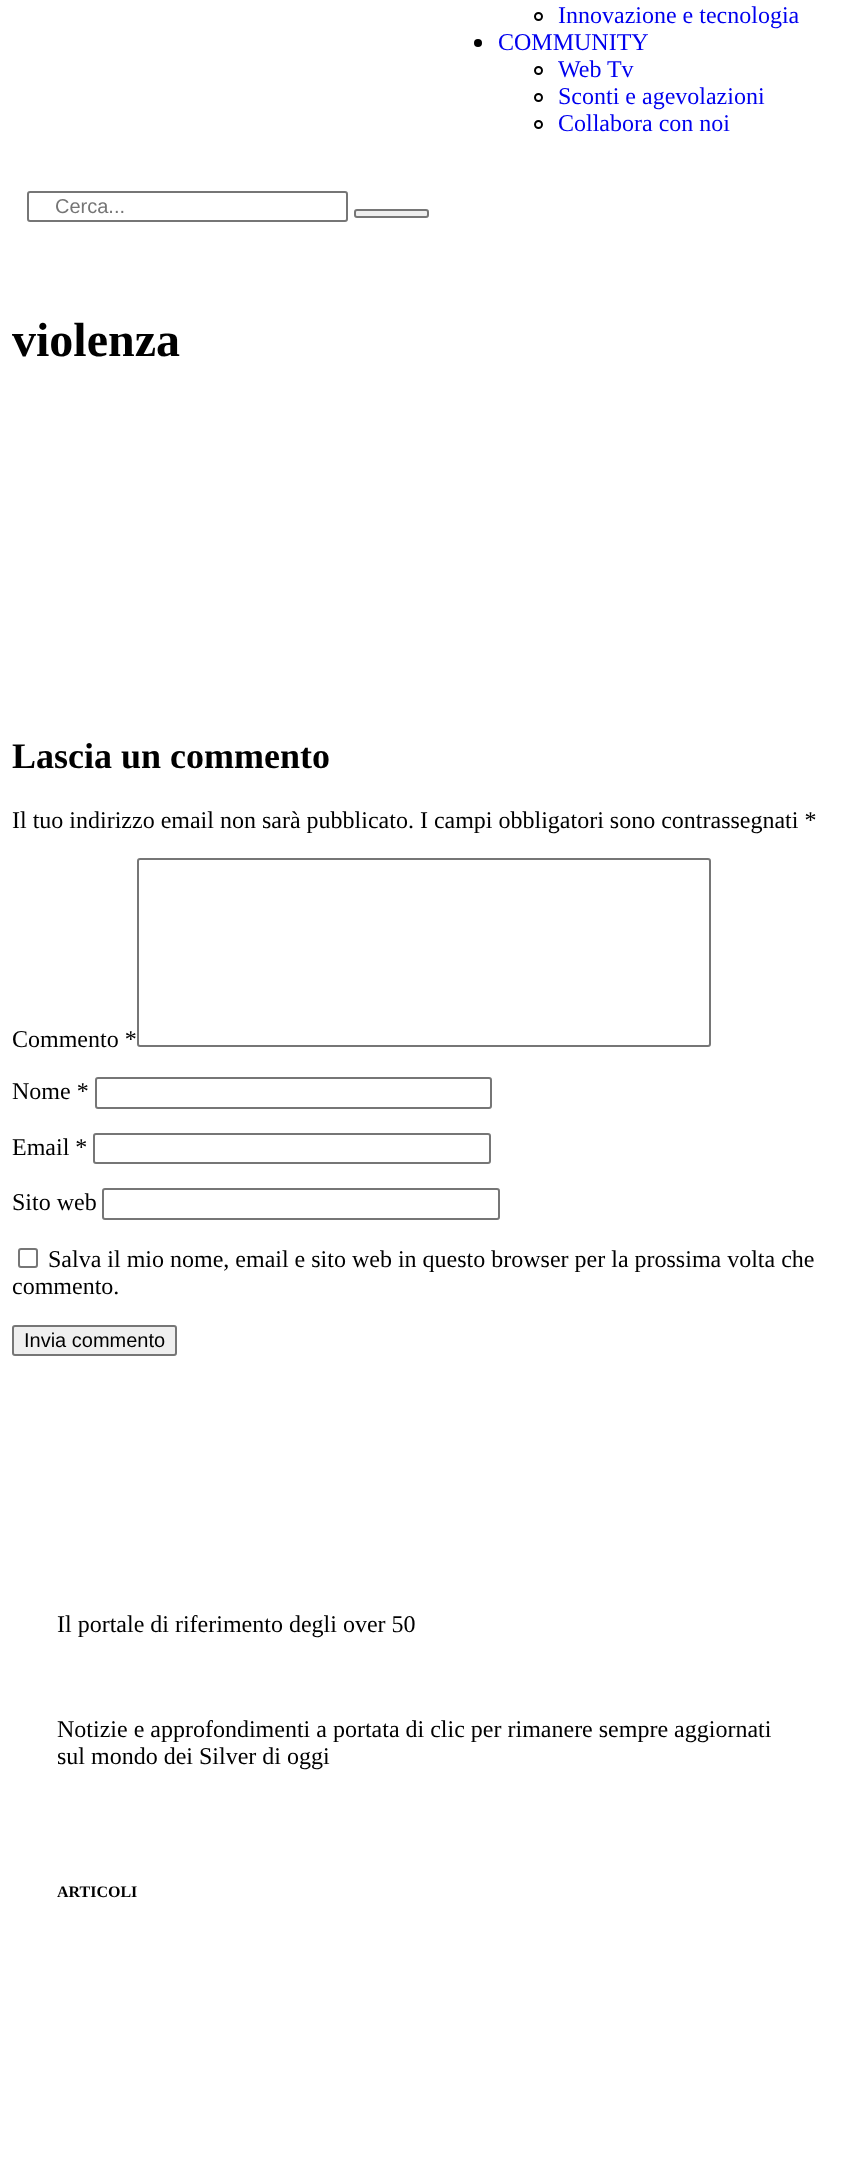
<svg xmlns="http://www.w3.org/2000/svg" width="845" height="2184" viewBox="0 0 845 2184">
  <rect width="100%" height="100%" fill="#fff"/>
  <circle cx="538.5" cy="16.5" r="3.5" fill="none" stroke="#000" stroke-width="2"/>
  <circle cx="478" cy="43" r="4" fill="#000"/>
  <circle cx="538.5" cy="70.5" r="3.5" fill="none" stroke="#000" stroke-width="2"/>
  <circle cx="538.5" cy="97.5" r="3.5" fill="none" stroke="#000" stroke-width="2"/>
  <circle cx="538.5" cy="124.5" r="3.5" fill="none" stroke="#000" stroke-width="2"/>
  <rect x="28" y="192" width="319" height="29" rx="2" fill="none" stroke="#767676" stroke-width="2"/>
  <rect x="355" y="210" width="73" height="7" rx="2" fill="#efefef" stroke="#767676" stroke-width="2"/>
  <rect x="138" y="859" width="572" height="187" rx="2" fill="none" stroke="#767676" stroke-width="2"/>
  <rect x="96" y="1078" width="395" height="30" rx="2" fill="none" stroke="#767676" stroke-width="2"/>
  <rect x="94" y="1134" width="396" height="29" rx="2" fill="none" stroke="#767676" stroke-width="2"/>
  <rect x="103" y="1189" width="396" height="30" rx="2" fill="none" stroke="#767676" stroke-width="2"/>
  <rect x="19" y="1249" width="18" height="18" rx="2" fill="none" stroke="#767676" stroke-width="2"/>
  <rect x="13" y="1326" width="163" height="29" rx="2" fill="#efefef" stroke="#767676" stroke-width="2"/>
  <g font-family="Liberation Serif" font-size="24" fill="#00e">
    <text x="558" y="23">Innovazione e tecnologia</text>
    <text x="498" y="50">COMMUNITY</text>
    <text x="558" y="77">Web Tv</text>
    <text x="558" y="104">Sconti e agevolazioni</text>
    <text x="558" y="131">Collabora con noi</text>
  </g>
  <text x="55" y="213" font-family="Liberation Sans" font-size="20" fill="#757575">Cerca...</text>
  <text x="12" y="356" font-family="Liberation Serif" font-size="48" font-weight="bold" fill="#000">violenza</text>
  <text x="12" y="768" font-family="Liberation Serif" font-size="36" font-weight="bold" fill="#000">Lascia un commento</text>
  <g font-family="Liberation Serif" font-size="24" fill="#000">
    <text x="12" y="828">Il tuo indirizzo email non sarà pubblicato. I campi obbligatori sono contrassegnati *</text>
    <text x="12" y="1047">Commento *</text>
    <text x="12" y="1099">Nome *</text>
    <text x="12" y="1155">Email *</text>
    <text x="12" y="1210">Sito web</text>
    <text x="48" y="1267">Salva il mio nome, email e sito web in questo browser per la prossima volta che</text>
    <text x="12" y="1294">commento.</text>
  </g>
  <text x="24" y="1347" font-family="Liberation Sans" font-size="20" fill="#000">Invia commento</text>
  <g font-family="Liberation Serif" font-size="24" fill="#000">
    <text x="57" y="1632">Il portale di riferimento degli over 50</text>
    <text x="57" y="1737">Notizie e approfondimenti a portata di clic per rimanere sempre aggiornati</text>
    <text x="57" y="1764">sul mondo dei Silver di oggi</text>
  </g>
  <text x="57" y="1897" font-family="Liberation Serif" font-size="16" font-weight="bold" fill="#000">ARTICOLI</text>
</svg>
